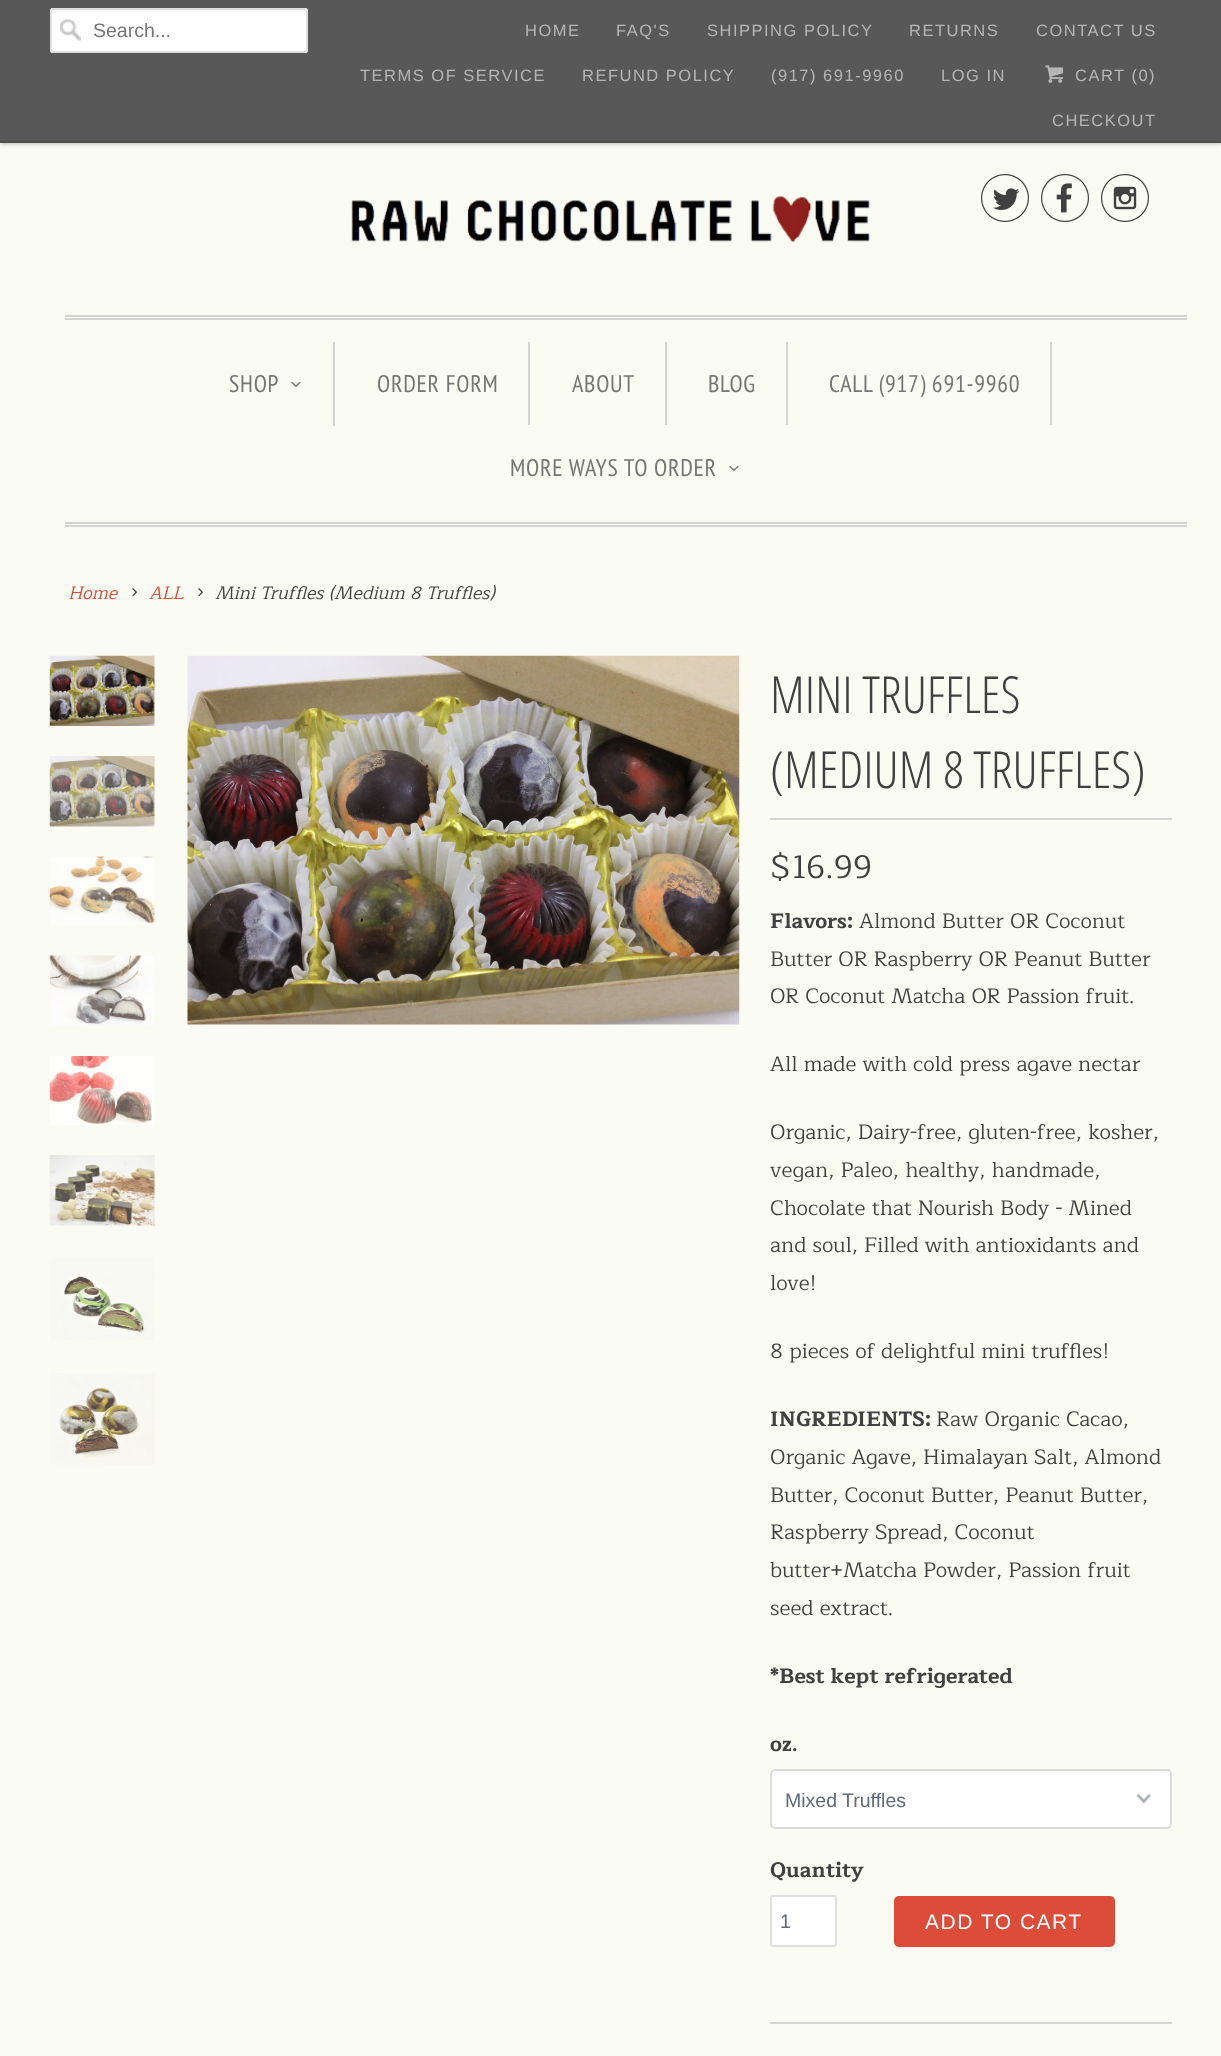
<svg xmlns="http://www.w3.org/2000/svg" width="1221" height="2056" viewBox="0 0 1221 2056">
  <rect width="100%" height="100%" fill="#fafbf3"/>
  <path d="M0 2h1221v142H0z" fill="#00000040" filter="blur(2px)"/>
  <path d="M0 0h1221v141H0z" fill="#585858"/>
  <path d="M0 141h1221v2H0z" fill="#4f4f4f"/>
  <rect x="50" y="8" width="258" height="45" rx="3" fill="#fff"/>
  <image x="60" y="19" width="21" height="22" href="img/1.png"/>
  <rect x="51" y="9" width="256" height="43" rx="2" fill="none" stroke="#dfdfdf" stroke-width="2"/>
  <image x="1045" y="65" width="19" height="18" href="img/2.png"/>
  <image x="351" y="195" width="519" height="47" href="img/3.png"/>
  <image x="981" y="174" width="48" height="48" href="img/4.png"/>
  <image x="1041" y="174" width="48" height="48" href="img/5.png"/>
  <image x="1101" y="174" width="48" height="48" href="img/6.png"/>
  <path d="M65 315h1122v2H65z" fill="#d3d3d3"/>
  <path d="M65 318h1122v2H65z" fill="#d3d3d3"/>
  <path d="M65 522h1122v2H65z" fill="#d3d3d3"/>
  <path d="M65 525h1122v2H65z" fill="#d3d3d3"/>
  <path d="M333 342h2v84H333z" fill="#d3d3d3"/>
  <image x="291" y="381" width="10" height="6" href="img/7.png"/>
  <path d="M528 342h2v83H528z" fill="#d3d3d3"/>
  <path d="M665 342h2v83H665z" fill="#d3d3d3"/>
  <path d="M786 342h2v83H786z" fill="#d3d3d3"/>
  <path d="M1050 342h2v83H1050z" fill="#d3d3d3"/>
  <image x="729" y="465" width="10" height="6" href="img/7.png"/>
  <image x="132" y="588" width="5" height="9" href="img/8.png"/>
  <image x="198" y="588" width="5" height="9" href="img/8.png"/>
  <image x="49" y="655" width="106" height="71" href="img/9.png"/>
  <image x="49" y="756" width="106" height="71" href="img/10.png"/>
  <image x="49" y="856" width="106" height="69" href="img/11.png"/>
  <image x="49" y="955" width="106" height="71" href="img/12.png"/>
  <image x="49" y="1056" width="106" height="69" href="img/13.png"/>
  <image x="49" y="1155" width="106" height="71" href="img/14.png"/>
  <image x="51" y="1258" width="103" height="82" href="img/15.png"/>
  <image x="50" y="1373" width="105" height="92" href="img/16.png"/>
  <image x="187" y="655" width="553" height="370" href="img/17.png"/>
  <path d="M770 818h402v2H770z" fill="#d3d3d3"/>
  <rect x="770" y="1769" width="402" height="60" rx="5" fill="#fff"/>
  <image x="1136" y="1793" width="15" height="11" href="img/18.png"/>
  <rect x="771" y="1770" width="400" height="58" rx="4" fill="none" stroke="#d9dbdc" stroke-width="2"/>
  <rect x="771" y="1896" width="65" height="50" rx="2" fill="#fff" stroke="#dfdfdf" stroke-width="2"/>
  <rect x="895" y="1897" width="219" height="49" rx="4" fill="#dd4b39" stroke="#dd4b39" stroke-width="2"/>
  <path d="M770 2022h402v2H770z" fill="#d3d3d3"/>
  <text x="93" y="37" font-family="Liberation Sans" font-size="19.5" fill="#757575">Search...</text>
  <g font-family="Liberation Sans" font-size="16.5" letter-spacing="1.5" fill="#b6b6b6">
    <text x="525" y="36">HOME</text>
    <text x="616" y="36">FAQ'S</text>
    <text x="707" y="36">SHIPPING POLICY</text>
    <text x="909" y="36">RETURNS</text>
    <text x="1036" y="36">CONTACT US</text>
    <text x="360" y="81">TERMS OF SERVICE</text>
    <text x="582" y="81">REFUND POLICY</text>
    <text x="771" y="81">(917) 691-9960</text>
    <text x="941" y="81">LOG IN</text>
    <text x="1075" y="81">CART (0)</text>
    <text x="1052" y="126">CHECKOUT</text>
  </g>
  <g font-family="PT Sans Narrow" font-size="24" letter-spacing="0.75" fill="#757575">
    <text x="229" y="392">SHOP</text>
    <text x="377" y="392">ORDER FORM</text>
    <text x="572" y="392">ABOUT</text>
    <text x="708" y="392">BLOG</text>
    <text x="829" y="392">CALL (917) 691-9960</text>
    <text x="510" y="476">MORE WAYS TO ORDER</text>
  </g>
  <g font-family="Maitree" font-size="18" font-style="italic" fill="#dd4b39">
    <text x="68" y="599">Home</text>
    <text x="149" y="599">ALL</text>
  </g>
  <text x="215" y="599" font-family="Maitree" font-size="18" font-style="italic" fill="#404040">Mini Truffles (Medium 8 Truffles)</text>
  <g font-family="Open Sans Condensed" font-size="51" font-weight="300" fill="#404040">
    <text x="770" y="713">MINI TRUFFLES</text>
    <text x="770" y="788">(MEDIUM 8 TRUFFLES)</text>
  </g>
  <text x="770" y="878" font-family="Maitree" font-size="33" fill="#404040">$16.99</text>
  <text x="770" y="928" font-family="Maitree" font-size="21" font-weight="bold" fill="#404040">Flavors:</text>
  <g font-family="Maitree" font-size="21" fill="#404040">
    <text x="859" y="928">Almond Butter OR Coconut</text>
    <text x="770" y="966">Butter OR Raspberry OR Peanut Butter</text>
    <text x="770" y="1003">OR Coconut Matcha OR Passion fruit.</text>
    <text x="770" y="1071">All made with cold press agave nectar</text>
    <text x="770" y="1139">Organic, Dairy-free, gluten-free, kosher,</text>
    <text x="770" y="1177">vegan, Paleo, healthy, handmade,</text>
    <text x="770" y="1215">Chocolate that Nourish Body - Mined</text>
    <text x="770" y="1252">and soul, Filled with antioxidants and</text>
    <text x="770" y="1290">love!</text>
    <text x="770" y="1358">8 pieces of delightful mini truffles!</text>
  </g>
  <text x="770" y="1426" font-family="Maitree" font-size="21" font-weight="bold" fill="#404040">INGREDIENTS:</text>
  <g font-family="Maitree" font-size="21" fill="#404040">
    <text x="936" y="1426">Raw Organic Cacao,</text>
    <text x="770" y="1464">Organic Agave, Himalayan Salt, Almond</text>
    <text x="770" y="1502">Butter, Coconut Butter, Peanut Butter,</text>
    <text x="770" y="1539">Raspberry Spread, Coconut</text>
    <text x="770" y="1577">butter+Matcha Powder, Passion fruit</text>
    <text x="770" y="1615">seed extract.</text>
  </g>
  <g font-family="Maitree" font-size="21" font-weight="bold" fill="#404040">
    <text x="770" y="1683">*Best kept refrigerated</text>
    <text x="770" y="1751">oz.</text>
  </g>
  <text x="785" y="1807" font-family="Liberation Sans" font-size="19.5" fill="#5f6a7d">Mixed Truffles</text>
  <text x="770" y="1877" font-family="Maitree" font-size="21" font-weight="bold" fill="#404040">Quantity</text>
  <text x="780" y="1928" font-family="Liberation Sans" font-size="19.5" fill="#5f6a7d">1</text>
  <text x="925" y="1929" font-family="Liberation Sans" font-size="21" letter-spacing="1.5" fill="#fff">ADD TO CART</text>
</svg>
